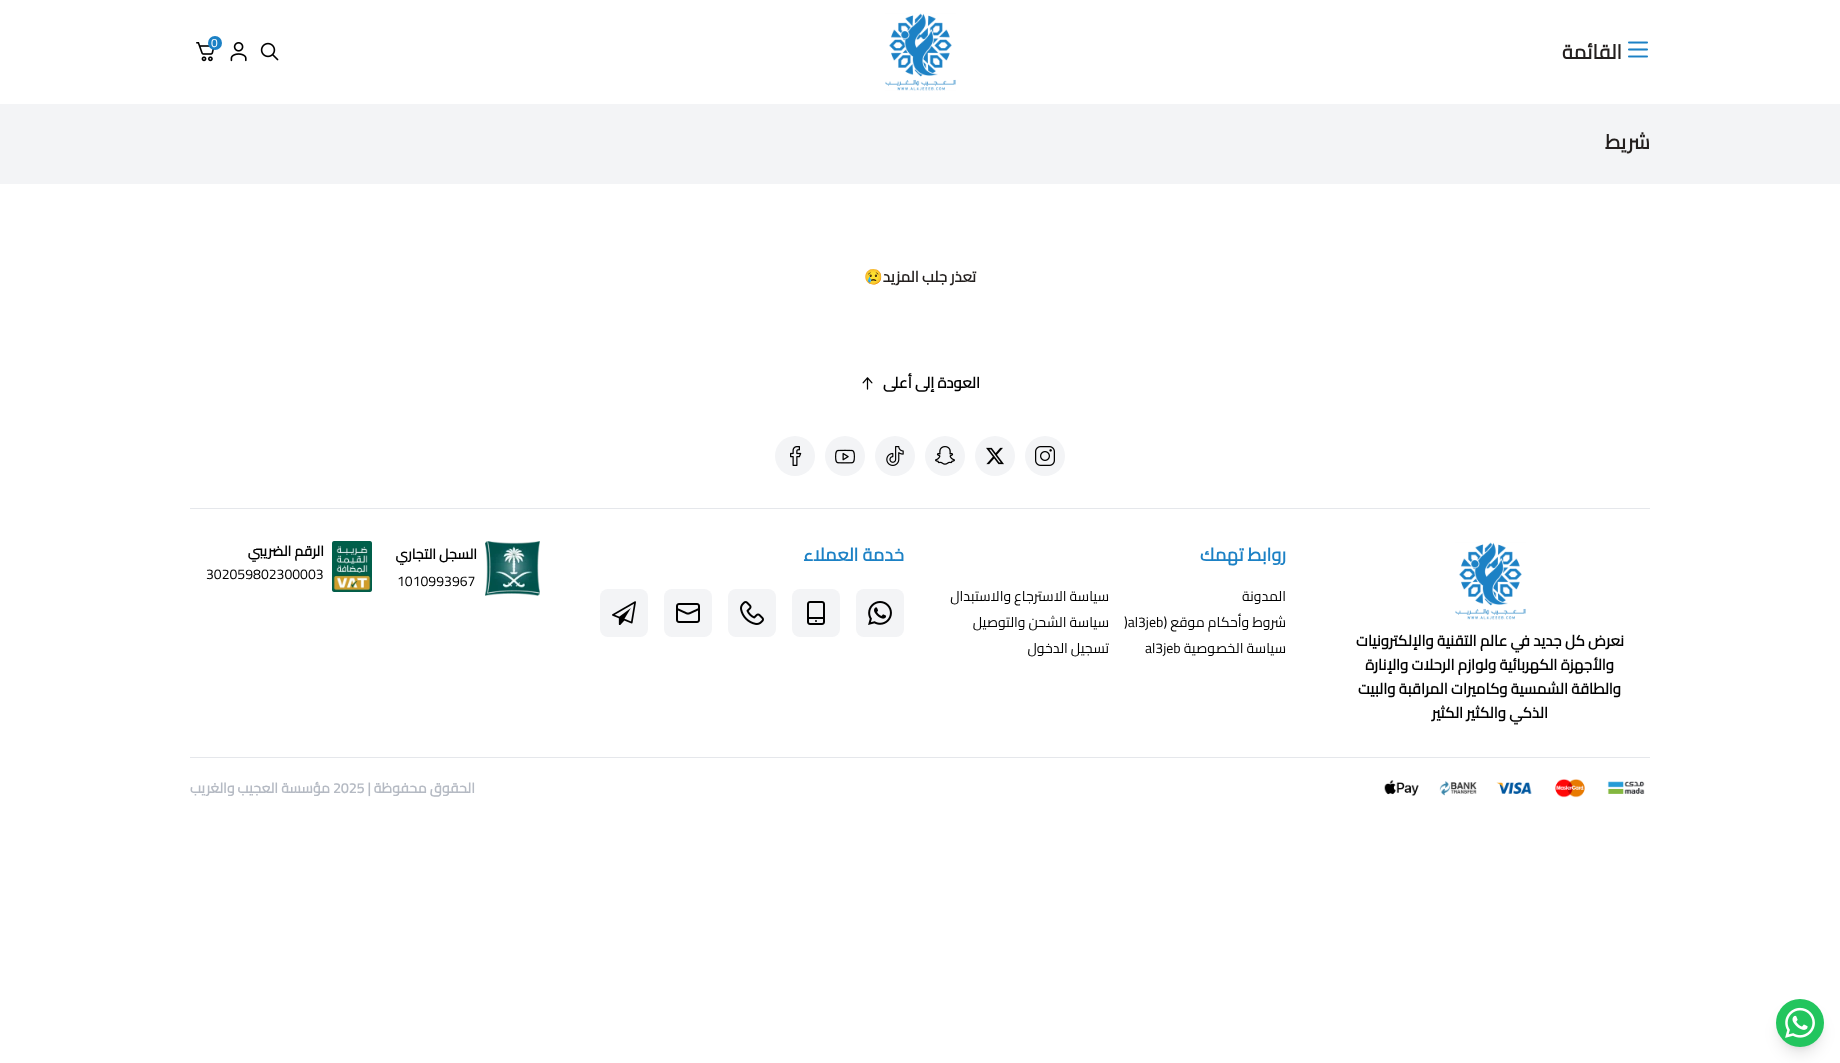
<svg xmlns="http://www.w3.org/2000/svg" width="1840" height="1063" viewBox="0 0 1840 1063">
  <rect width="100%" height="100%" fill="#fff"/>
  <image x="1628" y="41" width="20" height="17" href="img/1.png"/>
  <image x="885" y="13" width="71" height="78" href="img/2.png"/>
  <image x="260" y="42" width="19" height="19" href="img/3.png"/>
  <image x="230" y="42" width="17" height="20" href="img/4.png"/>
  <image x="196" y="42" width="18" height="20" href="img/5.png"/>
  <circle cx="215" cy="43" r="7" fill="#1c81c5"/>
  <path d="M0 104h1840v80H0z" fill="#f3f4f6"/>
  <image x="862" y="377" width="11" height="13" href="img/6.png"/>
  <path d="M190 508h1460v1H190z" fill="#e5e7eb"/>
  <circle cx="1045" cy="456" r="20" fill="#f3f4f6"/>
  <image x="1035" y="446" width="20" height="20" href="img/7.png"/>
  <circle cx="995" cy="456" r="20" fill="#f3f4f6"/>
  <image x="986" y="447" width="18" height="18" href="img/8.png"/>
  <circle cx="945" cy="456" r="20" fill="#f3f4f6"/>
  <image x="935" y="446" width="20" height="19" href="img/9.png"/>
  <circle cx="895" cy="456" r="20" fill="#f3f4f6"/>
  <image x="886" y="446" width="18" height="20" href="img/10.png"/>
  <circle cx="845" cy="456" r="20" fill="#f3f4f6"/>
  <image x="835" y="449" width="20" height="15" href="img/11.png"/>
  <circle cx="795" cy="456" r="20" fill="#f3f4f6"/>
  <image x="790" y="446" width="12" height="20" href="img/12.png"/>
  <path d="M190 757h1460v1H190z" fill="#e5e7eb"/>
  <rect x="856" y="589" width="48" height="48" rx="8" fill="#f3f4f6"/>
  <image x="868" y="601" width="24" height="24" href="img/13.png"/>
  <rect x="792" y="589" width="48" height="48" rx="8" fill="#f3f4f6"/>
  <image x="807" y="601" width="18" height="24" href="img/14.png"/>
  <rect x="728" y="589" width="48" height="48" rx="8" fill="#f3f4f6"/>
  <image x="740" y="601" width="24" height="24" href="img/15.png"/>
  <rect x="664" y="589" width="48" height="48" rx="8" fill="#f3f4f6"/>
  <image x="676" y="603" width="24" height="20" href="img/16.png"/>
  <rect x="600" y="589" width="48" height="48" rx="8" fill="#f3f4f6"/>
  <image x="612" y="601" width="24" height="24" href="img/17.png"/>
  <image x="485" y="541" width="55" height="55" href="img/18.png"/>
  <image x="332" y="541" width="40" height="51" href="img/19.png"/>
  <image x="1455" y="542" width="71" height="78" href="img/2.png"/>
  <image x="1607" y="781" width="38" height="13" href="img/20.png"/>
  <image x="1555" y="779" width="30" height="19" href="img/21.png"/>
  <image x="1496" y="782" width="36" height="12" href="img/22.png"/>
  <image x="1439" y="781" width="38" height="15" href="img/23.png"/>
  <image x="1384" y="780" width="35" height="16" href="img/24.png"/>
  <rect x="1780" y="1007" width="40" height="40" rx="20" fill="#0000001a" filter="blur(3px)"/>
  <rect x="1779" y="1012" width="42" height="42" rx="21" fill="#0000001a" filter="blur(7.5px)"/>
  <circle cx="1800" cy="1023" r="24" fill="#22c55e"/>
  <image x="1785" y="1007" width="30" height="31" href="img/25.png"/>
  <text x="1622" y="59" font-family="Cairo" font-size="20" font-weight="bold" direction="rtl" fill="#231f1e">القائمة</text>
  <text x="211" y="47" font-family="Cairo" font-size="12" fill="#fff">0</text>
  <text x="1650" y="149" font-family="Cairo" font-size="20" font-weight="bold" direction="rtl" fill="#231f1e">شريط</text>
  <text x="976" y="282" font-family="Cairo" font-size="15" font-weight="bold" direction="rtl" fill="#231f1e">تعذر جلب المزيد</text>
  <text x="883" y="282" font-family="Noto Color Emoji" font-size="15" font-weight="bold" direction="rtl" fill="#231f1e">😢</text>
  <text x="980" y="388" font-family="Cairo" font-size="15" font-weight="bold" direction="rtl" fill="#000">العودة إلى أعلى</text>
  <text x="1286" y="561" font-family="Cairo" font-size="18" font-weight="bold" direction="rtl" fill="#1c81c5">روابط تهمك</text>
  <g font-family="Cairo" font-size="14" direction="rtl" fill="#000">
    <text x="1286" y="601">المدونة</text>
    <text x="1109" y="601">سياسة الاسترجاع والاستبدال</text>
    <text x="1286" y="627">شروط وأحكام موقع (</text>
  </g>
  <text x="1124" y="627" font-family="Cairo" font-size="14" fill="#000">)al3jeb</text>
  <g font-family="Cairo" font-size="14" direction="rtl" fill="#000">
    <text x="1109" y="627">سياسة الشحن والتوصيل</text>
    <text x="1286" y="653">سياسة الخصوصية</text>
  </g>
  <text x="1145" y="653" font-family="Cairo" font-size="14" fill="#000">al3jeb</text>
  <text x="1109" y="653" font-family="Cairo" font-size="14" direction="rtl" fill="#000">تسجيل الدخول</text>
  <text x="904" y="561" font-family="Cairo" font-size="18" font-weight="bold" direction="rtl" fill="#1c81c5">خدمة العملاء</text>
  <text x="477" y="559" font-family="Cairo" font-size="14" font-weight="bold" direction="rtl" fill="#000">السجل التجاري</text>
  <text x="397" y="586" font-family="Cairo" font-size="14" fill="#000">1010993967</text>
  <text x="324" y="556" font-family="Cairo" font-size="14" font-weight="bold" direction="rtl" fill="#000">الرقم الضريبي</text>
  <text x="206" y="579" font-family="Cairo" font-size="14" fill="#000">302059802300003</text>
  <g font-family="Cairo" font-size="15" font-weight="bold" direction="rtl" fill="#000">
    <text x="1624" y="646">نعرض كل جديد في عالم التقنية والإلكترونيات</text>
    <text x="1614" y="670">والأجهزة الكهربائية ولوازم الرحلات والإنارة</text>
    <text x="1621" y="694">والطاقة الشمسية وكاميرات المراقبة والبيت</text>
    <text x="1548" y="718">الذكي والكثير الكثير</text>
  </g>
  <text x="475" y="793" font-family="Cairo" font-size="14" font-weight="bold" direction="rtl" fill="#b5bac3">الحقوق محفوظة |</text>
  <text x="333" y="793" font-family="Cairo" font-size="14" font-weight="bold" fill="#b5bac3">2025</text>
  <text x="330" y="793" font-family="Cairo" font-size="14" font-weight="bold" direction="rtl" fill="#b5bac3">مؤسسة العجيب والغريب</text>
</svg>
